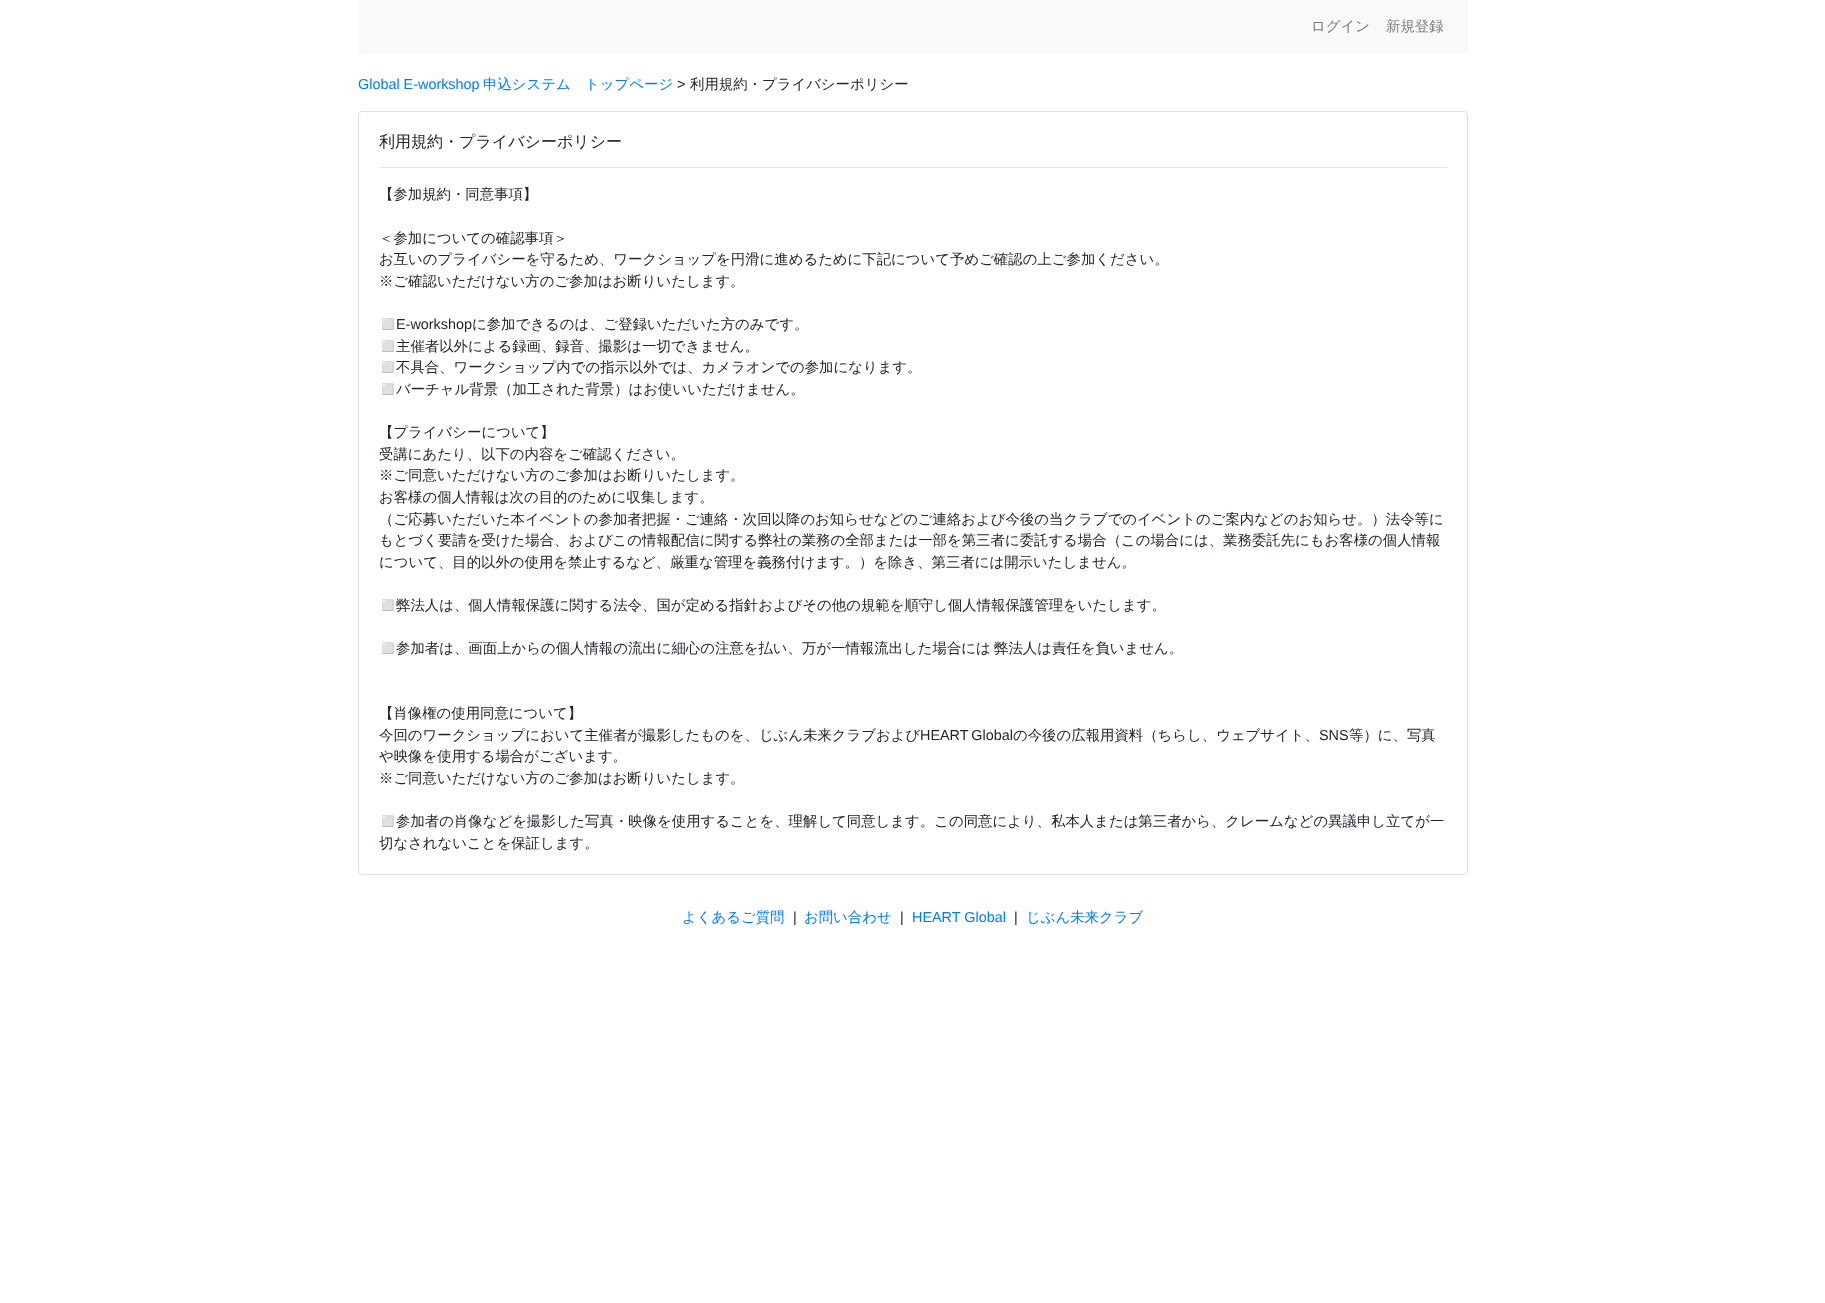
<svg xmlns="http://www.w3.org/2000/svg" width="1825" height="1303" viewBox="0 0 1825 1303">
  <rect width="100%" height="100%" fill="#fff"/>
  <path d="M358 0h1110v54H358z" fill="#f8f9fa"/>
  <rect x="358.5" y="111.5" width="1109" height="763" rx="3.5" fill="none" stroke="#dfdfdf"/>
  <path d="M379 167h1068v1H379z" fill="#e6e6e6"/>
  <g font-family="WenQuanYi Zen Hei" font-size="14.4" font-weight="500" fill="#7c7d7d">
    <text x="1311" y="31">ログイン</text>
    <text x="1386" y="31">新規登録</text>
  </g>
  <text x="358" y="89" font-family="Liberation Sans" font-size="14.4" fill="#007bff">Global E-workshop</text>
  <text x="483" y="89" font-family="WenQuanYi Zen Hei" font-size="14.4" font-weight="500" fill="#007bff">申込システム　トップページ</text>
  <text x="677" y="89" font-family="Liberation Sans" font-size="14.4" fill="#212529">&gt;</text>
  <text x="690" y="89" font-family="WenQuanYi Zen Hei" font-size="14.4" font-weight="500" fill="#212529">利用規約・プライバシーポリシー</text>
  <text x="379" y="147" font-family="WenQuanYi Zen Hei" font-size="16" font-weight="500" fill="#212529">利用規約・プライバシーポリシー</text>
  <g font-family="WenQuanYi Zen Hei" font-size="14.4" font-weight="500" fill="#212529">
    <text x="379" y="199">【参加規約・同意事項】</text>
    <text x="379" y="243">＜参加についての確認事項＞</text>
    <text x="379" y="264">お互いのプライバシーを守るため、ワークショップを円滑に進めるために下記について予めご確認の上ご参加ください。</text>
    <text x="379" y="286">※ご確認いただけない方のご参加はお断りいたします。</text>
  </g>
  <text x="379" y="329" font-family="Noto Color Emoji" font-size="14.4" fill="#212529">◻️</text>
  <text x="396" y="329" font-family="Liberation Sans" font-size="14.4" fill="#212529">E-workshop</text>
  <text x="472" y="329" font-family="WenQuanYi Zen Hei" font-size="14.4" font-weight="500" fill="#212529">に参加できるのは、ご登録いただいた方のみです。</text>
  <text x="379" y="351" font-family="Noto Color Emoji" font-size="14.4" fill="#212529">◻️</text>
  <text x="396" y="351" font-family="WenQuanYi Zen Hei" font-size="14.4" font-weight="500" fill="#212529">主催者以外による録画、録音、撮影は一切できません。</text>
  <text x="379" y="372" font-family="Noto Color Emoji" font-size="14.4" fill="#212529">◻️</text>
  <text x="396" y="372" font-family="WenQuanYi Zen Hei" font-size="14.4" font-weight="500" fill="#212529">不具合、ワークショップ内での指示以外では、カメラオンでの参加になります。</text>
  <text x="379" y="394" font-family="Noto Color Emoji" font-size="14.4" fill="#212529">◻️</text>
  <g font-family="WenQuanYi Zen Hei" font-size="14.4" font-weight="500" fill="#212529">
    <text x="396" y="394">バーチャル背景（加工された背景）はお使いいただけません。</text>
    <text x="379" y="437">【プライバシーについて】</text>
    <text x="379" y="459">受講にあたり、以下の内容をご確認ください。</text>
    <text x="379" y="480">※ご同意いただけない方のご参加はお断りいたします。</text>
    <text x="379" y="502">お客様の個人情報は次の目的のために収集します。</text>
    <text x="379" y="524">（ご応募いただいた本イベントの参加者把握・ご連絡・次回以降のお知らせなどのご連絡および今後の当クラブでのイベントのご案内などのお知らせ。）法令等に</text>
    <text x="379" y="545">もとづく要請を受けた場合、およびこの情報配信に関する弊社の業務の全部または一部を第三者に委託する場合（この場合には、業務委託先にもお客様の個人情報</text>
    <text x="379" y="567">について、目的以外の使用を禁止するなど、厳重な管理を義務付けます。）を除き、第三者には開示いたしません。</text>
  </g>
  <text x="379" y="610" font-family="Noto Color Emoji" font-size="14.4" fill="#212529">◻️</text>
  <text x="396" y="610" font-family="WenQuanYi Zen Hei" font-size="14.4" font-weight="500" fill="#212529">弊法人は、個人情報保護に関する法令、国が定める指針およびその他の規範を順守し個人情報保護管理をいたします。</text>
  <text x="379" y="653" font-family="Noto Color Emoji" font-size="14.4" fill="#212529">◻️</text>
  <g font-family="WenQuanYi Zen Hei" font-size="14.4" font-weight="500" fill="#212529">
    <text x="396" y="653" word-spacing="-1">参加者は、画面上からの個人情報の流出に細心の注意を払い、万が一情報流出した場合には 弊法人は責任を負いません。</text>
    <text x="379" y="718">【肖像権の使用同意について】</text>
    <text x="379" y="740">今回のワークショップにおいて主催者が撮影したものを、じぶん未来クラブおよび</text>
  </g>
  <text x="920" y="740" word-spacing="-1" font-family="Liberation Sans" font-size="14.4" fill="#212529">HEART Global</text>
  <text x="1013" y="740" font-family="WenQuanYi Zen Hei" font-size="14.4" font-weight="500" fill="#212529">の今後の広報用資料（ちらし、ウェブサイト、</text>
  <text x="1319" y="740" font-family="Liberation Sans" font-size="14.4" fill="#212529">SNS</text>
  <g font-family="WenQuanYi Zen Hei" font-size="14.4" font-weight="500" fill="#212529">
    <text x="1349" y="740">等）に、写真</text>
    <text x="379" y="761">や映像を使用する場合がございます。</text>
    <text x="379" y="783">※ご同意いただけない方のご参加はお断りいたします。</text>
  </g>
  <text x="379" y="826" font-family="Noto Color Emoji" font-size="14.4" fill="#212529">◻️</text>
  <g font-family="WenQuanYi Zen Hei" font-size="14.4" font-weight="500" fill="#212529">
    <text x="396" y="826">参加者の肖像などを撮影した写真・映像を使用することを、理解して同意します。この同意により、私本人または第三者から、クレームなどの異議申し立てが一</text>
    <text x="379" y="848">切なされないことを保証します。</text>
  </g>
  <text x="682" y="922" font-family="WenQuanYi Zen Hei" font-size="14.4" font-weight="500" fill="#007bff">よくあるご質問</text>
  <text x="793" y="922" font-family="Liberation Sans" font-size="14.4" fill="#212529">|</text>
  <text x="804" y="922" font-family="WenQuanYi Zen Hei" font-size="14.4" font-weight="500" fill="#007bff">お問い合わせ</text>
  <text x="900" y="922" font-family="Liberation Sans" font-size="14.4" fill="#212529">|</text>
  <text x="912" y="922" font-family="Liberation Sans" font-size="14.4" fill="#007bff">HEART Global</text>
  <text x="1014" y="922" font-family="Liberation Sans" font-size="14.4" fill="#212529">|</text>
  <text x="1026" y="922" font-family="WenQuanYi Zen Hei" font-size="14.4" font-weight="500" fill="#007bff">じぶん未来クラブ</text>
</svg>
